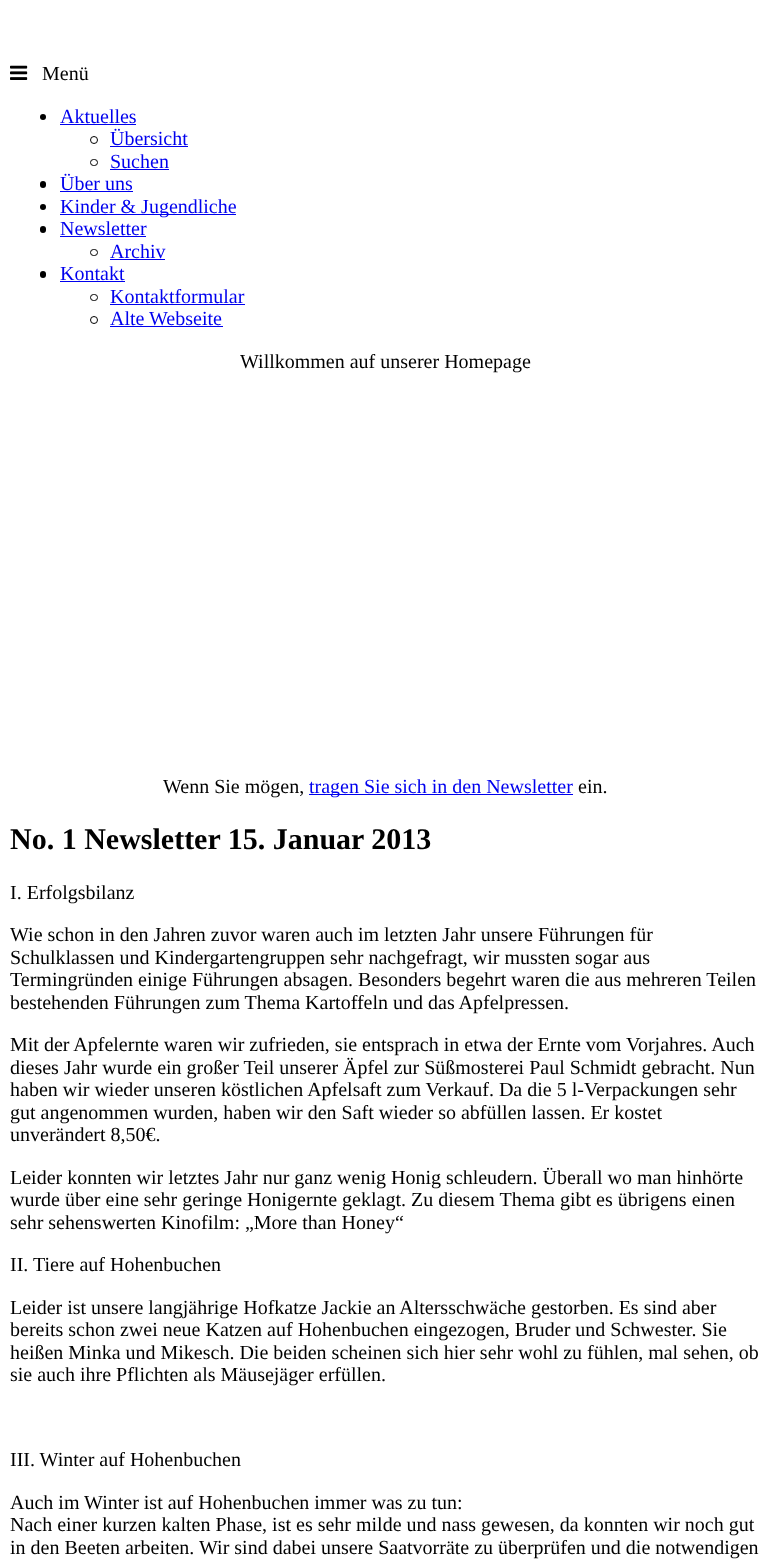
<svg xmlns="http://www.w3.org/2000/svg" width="769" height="1564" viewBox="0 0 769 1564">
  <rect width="100%" height="100%" fill="#fff"/>
  <image x="10" y="65" width="18" height="15" href="img/1.png"/>
  <circle cx="43" cy="117" r="3" fill="#000"/>
  <path d="M60 124h76v1H60z" fill="#00e"/>
  <circle cx="94" cy="140" r="3.5" fill="none" stroke="#000"/>
  <path d="M110 146h78v1H110z" fill="#00e"/>
  <rect x="90.5" y="159.5" width="7" height="6" rx="3" fill="none" stroke="#000"/>
  <path d="M110 169h59v1H110z" fill="#00e"/>
  <rect x="40" y="181" width="6" height="7" rx="3" fill="#000"/>
  <path d="M60 191h73v1H60z" fill="#00e"/>
  <circle cx="43" cy="207" r="3" fill="#000"/>
  <path d="M60 214h176v1H60z" fill="#00e"/>
  <rect x="40" y="226" width="6" height="7" rx="3" fill="#000"/>
  <path d="M60 236h86v1H60z" fill="#00e"/>
  <rect x="90.5" y="249.5" width="7" height="6" rx="3" fill="none" stroke="#000"/>
  <path d="M110 259h55v1H110z" fill="#00e"/>
  <rect x="40" y="271" width="6" height="7" rx="3" fill="#000"/>
  <path d="M60 281h65v1H60z" fill="#00e"/>
  <rect x="90.5" y="294.5" width="7" height="6" rx="3" fill="none" stroke="#000"/>
  <path d="M110 304h135v1H110z" fill="#00e"/>
  <circle cx="94" cy="320" r="3.5" fill="none" stroke="#000"/>
  <path d="M110 326h113v1H110z" fill="#00e"/>
  <path d="M309 794h264v1H309z" fill="#00e"/>
  <text x="42" y="80" font-family="Liberation Serif" font-size="20" fill="#000">Menü</text>
  <g font-family="Liberation Serif" font-size="20" fill="#00e">
    <text x="60" y="123">Aktuelles</text>
    <text x="110" y="145">Übersicht</text>
    <text x="110" y="168">Suchen</text>
    <text x="60" y="190">Über uns</text>
    <text x="60" y="213">Kinder &amp; Jugendliche</text>
    <text x="60" y="235">Newsletter</text>
    <text x="110" y="258">Archiv</text>
    <text x="60" y="280">Kontakt</text>
    <text x="110" y="303">Kontaktformular</text>
    <text x="110" y="325">Alte Webseite</text>
  </g>
  <g font-family="Liberation Serif" font-size="20" fill="#000">
    <text x="240" y="368">Willkommen auf unserer Homepage</text>
    <text x="163" y="793">Wenn Sie mögen,</text>
  </g>
  <text x="309" y="793" font-family="Liberation Serif" font-size="20" fill="#00e">tragen Sie sich in den Newsletter</text>
  <text x="578" y="793" font-family="Liberation Serif" font-size="20" fill="#000">ein.</text>
  <text x="10" y="849" font-family="Liberation Serif" font-size="30" font-weight="bold" fill="#000">No. 1 Newsletter 15. Januar 2013</text>
  <g font-family="Liberation Serif" font-size="20" fill="#000">
    <text x="10" y="899">I. Erfolgsbilanz</text>
    <text x="10" y="941">Wie schon in den Jahren zuvor waren auch im letzten Jahr unsere Führungen für</text>
    <text x="10" y="964">Schulklassen und Kindergartengruppen sehr nachgefragt, wir mussten sogar aus</text>
    <text x="10" y="986">Termingründen einige Führungen absagen. Besonders begehrt waren die aus mehreren Teilen</text>
    <text x="10" y="1009">bestehenden Führungen zum Thema Kartoffeln und das Apfelpressen.</text>
    <text x="10" y="1051">Mit der Apfelernte waren wir zufrieden, sie entsprach in etwa der Ernte vom Vorjahres. Auch</text>
    <text x="10" y="1074">dieses Jahr wurde ein großer Teil unserer Äpfel zur Süßmosterei Paul Schmidt gebracht. Nun</text>
    <text x="10" y="1096">haben wir wieder unseren köstlichen Apfelsaft zum Verkauf. Da die 5 l-Verpackungen sehr</text>
    <text x="10" y="1119">gut angenommen wurden, haben wir den Saft wieder so abfüllen lassen. Er kostet</text>
    <text x="10" y="1141">unverändert 8,50€.</text>
    <text x="10" y="1184">Leider konnten wir letztes Jahr nur ganz wenig Honig schleudern. Überall wo man hinhörte</text>
    <text x="10" y="1206">wurde über eine sehr geringe Honigernte geklagt. Zu diesem Thema gibt es übrigens einen</text>
    <text x="10" y="1229">sehr sehenswerten Kinofilm: „More than Honey“</text>
    <text x="10" y="1271">II. Tiere auf Hohenbuchen</text>
    <text x="10" y="1314">Leider ist unsere langjährige Hofkatze Jackie an Altersschwäche gestorben. Es sind aber</text>
    <text x="10" y="1336">bereits schon zwei neue Katzen auf Hohenbuchen eingezogen, Bruder und Schwester. Sie</text>
    <text x="10" y="1359">heißen Minka und Mikesch. Die beiden scheinen sich hier sehr wohl zu fühlen, mal sehen, ob</text>
    <text x="10" y="1381">sie auch ihre Pflichten als Mäusejäger erfüllen.</text>
    <text x="10" y="1466">III. Winter auf Hohenbuchen</text>
    <text x="10" y="1509">Auch im Winter ist auf Hohenbuchen immer was zu tun:</text>
    <text x="10" y="1531">Nach einer kurzen kalten Phase, ist es sehr milde und nass gewesen, da konnten wir noch gut</text>
    <text x="10" y="1554">in den Beeten arbeiten. Wir sind dabei unsere Saatvorräte zu überprüfen und die notwendigen</text>
  </g>
</svg>
